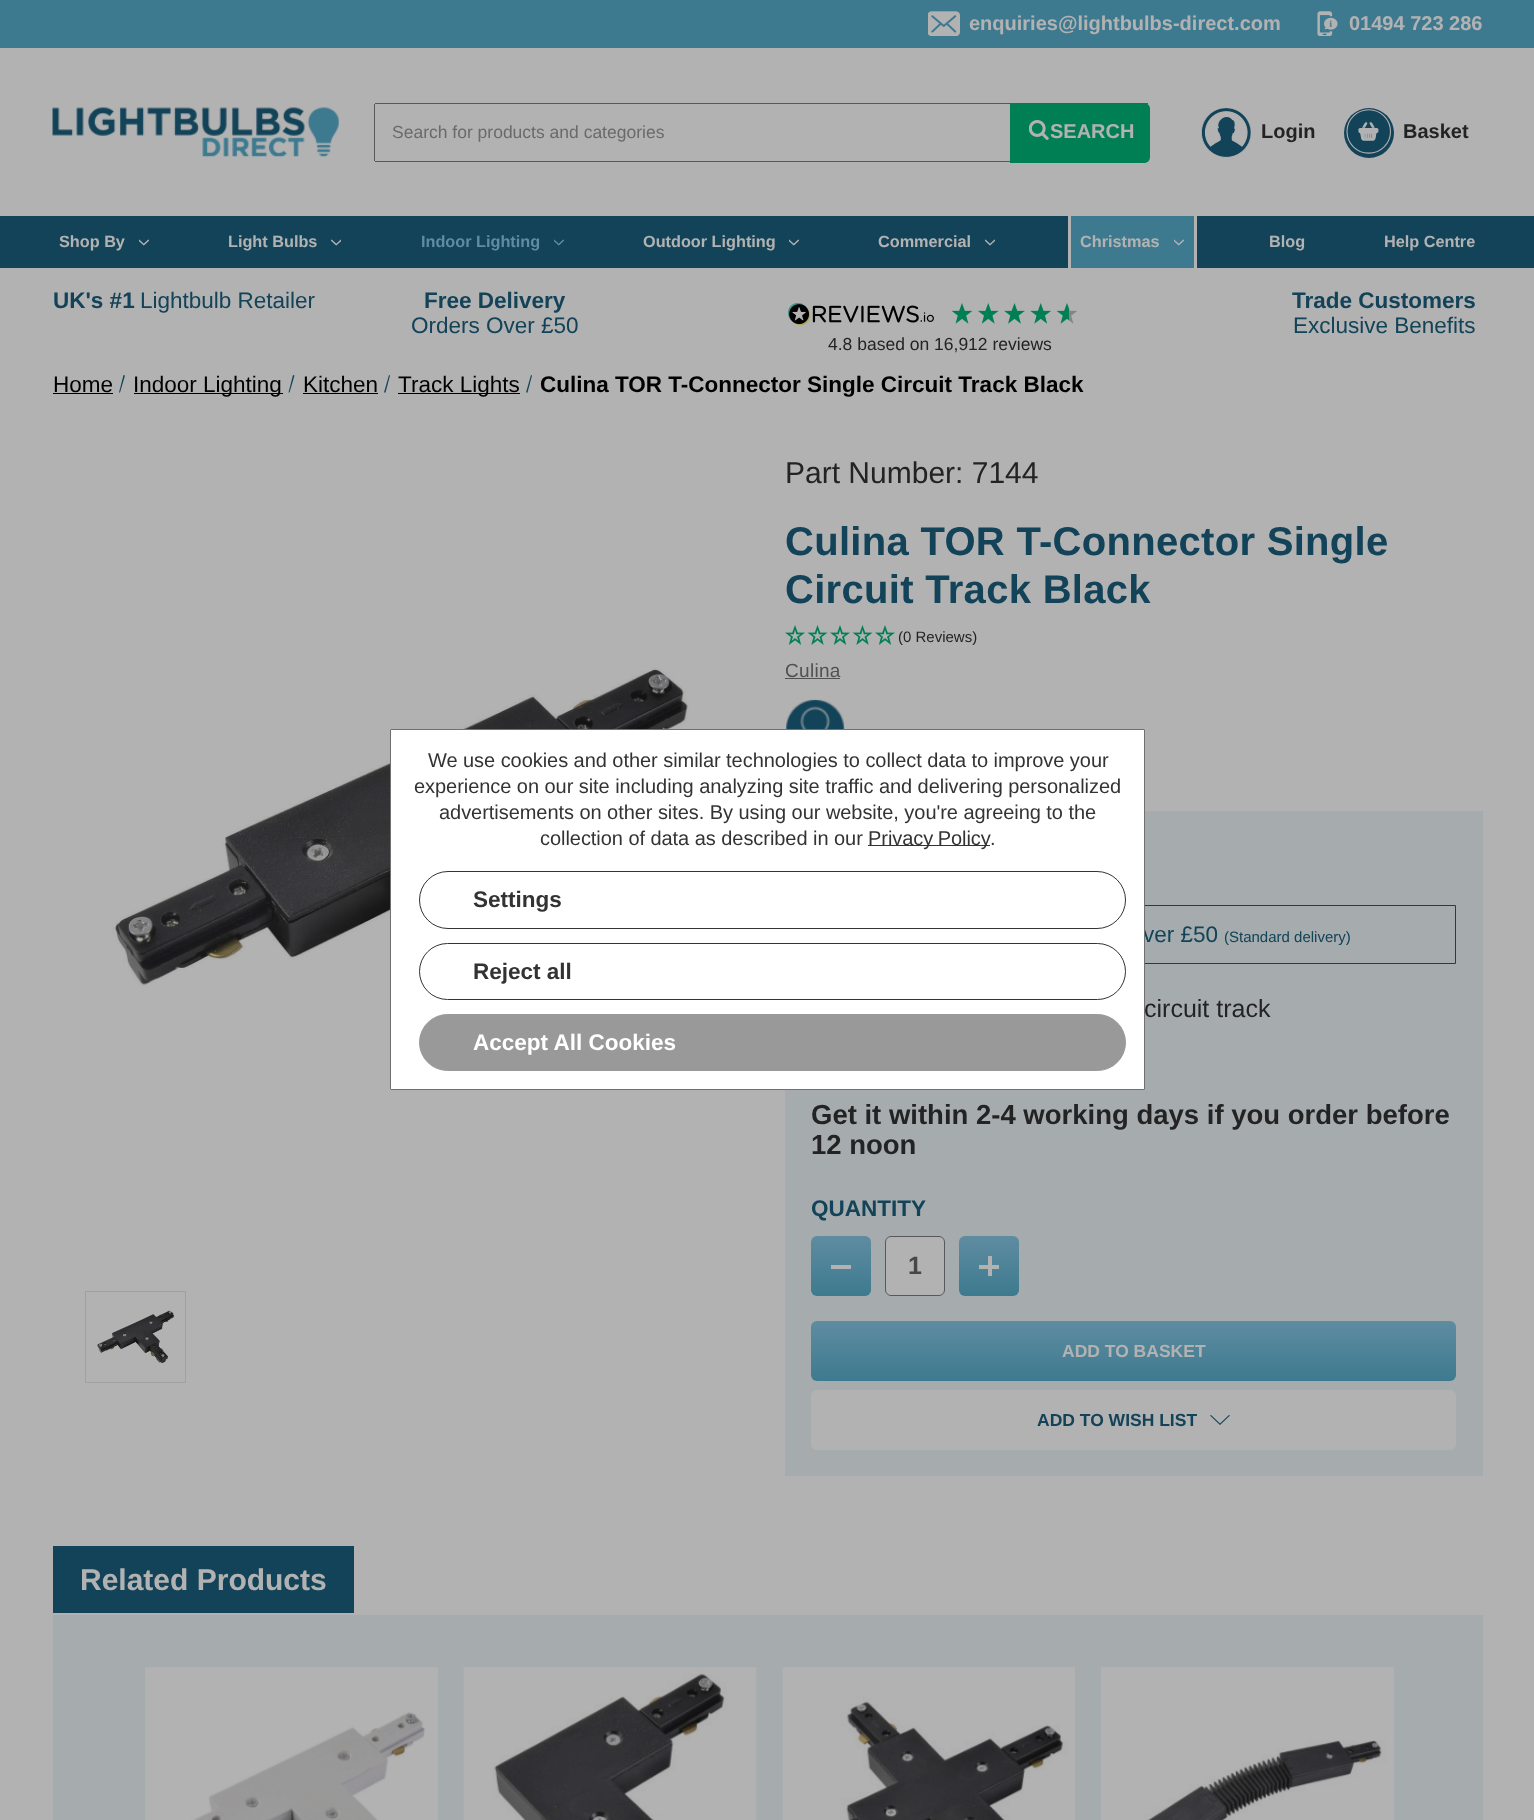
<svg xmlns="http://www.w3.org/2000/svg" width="1534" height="1820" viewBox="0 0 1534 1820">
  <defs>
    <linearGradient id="g1" gradientUnits="userSpaceOnUse" x1="841" y1="1236" x2="841" y2="1296"><stop offset="0" stop-color="#88c9e7"/><stop offset="1" stop-color="#59afcd"/></linearGradient>
    <linearGradient id="g2" gradientUnits="userSpaceOnUse" x1="989" y1="1236" x2="989" y2="1296"><stop offset="0" stop-color="#88c9e7"/><stop offset="1" stop-color="#59afcd"/></linearGradient>
    <linearGradient id="g3" gradientUnits="userSpaceOnUse" x1="1134" y1="1321" x2="1134" y2="1381"><stop offset="0" stop-color="#88c9e7"/><stop offset="1" stop-color="#59afcd"/></linearGradient>
  </defs>
  <rect width="100%" height="100%" fill="#fff"/>
  <path d="M0 0h1534v48H0z" fill="#59afcd"/>
  <image x="928" y="11" width="32" height="25" href="img/1.png"/>
  <image x="1317" y="11" width="21" height="25" href="img/2.png"/>
  <image x="52" y="107" width="287" height="50" href="img/3.png"/>
  <path d="M375 103h773v1H375z" fill="#7f7f7f"/>
  <path d="M375 161h773v1H375z" fill="#7f7f7f"/>
  <path d="M374 104h1v57H374z" fill="#7f7f7f"/>
  <path d="M1010 103H1144C1147.5 103 1150 105.5 1150 109V157C1150 160.5 1147.5 163 1144 163H1010Z" fill="#00b67a"/>
  <image x="1029" y="120" width="20" height="20" href="img/4.png"/>
  <image x="1201" y="108" width="50" height="50" href="img/5.png"/>
  <circle cx="1369" cy="133" r="25" fill="#1b607e"/>
  <image x="1346" y="109" width="45" height="45" href="img/6.png"/>
  <path d="M0 216h1534v52H0z" fill="#1b607e"/>
  <image x="139" y="239" width="10" height="7" href="img/7.png"/>
  <image x="331" y="239" width="10" height="7" href="img/8.png"/>
  <image x="554" y="239" width="10" height="7" href="img/9.png"/>
  <image x="789" y="239" width="10" height="7" href="img/7.png"/>
  <image x="985" y="239" width="10" height="7" href="img/10.png"/>
  <path d="M1071 216h123v52H1071z" fill="#59afcd"/>
  <path d="M1194 216h3v52H1194z" fill="#fff"/>
  <path d="M1068 216h3v52H1068z" fill="#fff"/>
  <image x="1174" y="239" width="10" height="7" href="img/11.png"/>
  <image x="788" y="303" width="146" height="23" href="img/12.png"/>
  <image x="951" y="303" width="22" height="21" href="img/13.png"/>
  <image x="978" y="303" width="21" height="21" href="img/14.png"/>
  <image x="1004" y="303" width="21" height="21" href="img/15.png"/>
  <image x="1030" y="303" width="21" height="21" href="img/16.png"/>
  <image x="1056" y="303" width="21" height="21" href="img/17.png"/>
  <path d="M53 393h60v1H53z" fill="#000"/>
  <path d="M123.5 375L125 375.5L120 392.5H119Z" fill="#1b607e"/>
  <path d="M134 393h149v1H134z" fill="#000"/>
  <path d="M293 375L294.5 375.5L289.5 392.5H288.5Z" fill="#1b607e"/>
  <path d="M303 393h75v1H303z" fill="#000"/>
  <path d="M389 375L390 375.5L385.5 392.5H384Z" fill="#1b607e"/>
  <path d="M398 393h122v1H398z" fill="#000"/>
  <path d="M531 375L532 375.5L527.5 392.5H526Z" fill="#1b607e"/>
  <image x="112" y="667" width="577" height="397" href="img/18.png"/>
  <path d="M85.5 1291.5h100v91H85.5z" fill="none" stroke="#e5e5e5"/>
  <image x="97" y="1310" width="77" height="54" href="img/19.png"/>
  <image x="785" y="625" width="20" height="20" href="img/20.png"/>
  <image x="807" y="625" width="21" height="20" href="img/21.png"/>
  <image x="830" y="625" width="20" height="20" href="img/20.png"/>
  <image x="852" y="625" width="21" height="20" href="img/21.png"/>
  <image x="875" y="625" width="20" height="20" href="img/20.png"/>
  <path d="M785 678h55v1H785z" fill="#757575"/>
  <image x="785" y="699" width="60" height="30" href="img/22.png"/>
  <path d="M785 811h698v665H785z" fill="#eef7fa"/>
  <path d="M811.5 905.5h644v58H811.5z" fill="none" stroke="#1b607e"/>
  <rect x="811" y="1236" width="60" height="60" rx="6" fill="url(#g1)"/>
  <path d="M831 1265h20v4H831z" fill="#fff"/>
  <rect x="885.5" y="1236.5" width="59" height="59" rx="5.5" fill="#fff" stroke="#7f7f7f"/>
  <rect x="959" y="1236" width="60" height="60" rx="6" fill="url(#g2)"/>
  <path d="M979 1265h20v4H979z" fill="#fff"/>
  <path d="M988 1256h4v20H988z" fill="#fff"/>
  <rect x="811" y="1321" width="645" height="60" rx="6" fill="url(#g3)"/>
  <rect x="811" y="1390" width="645" height="60" rx="6" fill="#fff"/>
  <path d="M1220 1423.5L1229 1415L1230 1415.5L1220 1425L1210 1415.5L1211 1415Z" fill="#1b607e" fill-rule="evenodd"/>
  <path d="M53 1546h301v67H53z" fill="#1b607e"/>
  <path d="M53 1615h1430v205H53z" fill="#eef7fa"/>
  <path d="M145 1668h293v152H145z" fill="#fff"/>
  <image x="145" y="1667" width="293" height="153" href="img/23.png"/>
  <image x="463" y="1667" width="294" height="153" href="img/24.png"/>
  <image x="782" y="1667" width="293" height="153" href="img/25.png"/>
  <path d="M1101 1668h293v152H1101z" fill="#fff"/>
  <image x="1101" y="1667" width="293" height="153" href="img/26.png"/>
  <g font-family="Liberation Sans" font-size="20" font-weight="bold" fill="#fff">
    <text x="969" y="30">enquiries@lightbulbs-direct.com</text>
    <text x="1349" y="30">01494 723 286</text>
  </g>
  <text x="392" y="138" font-family="Liberation Sans" font-size="17.5" fill="#999">Search for products and categories</text>
  <text x="1050" y="138" font-family="Liberation Sans" font-size="20" font-weight="bold" fill="#fff">SEARCH</text>
  <g font-family="Liberation Sans" font-size="20" font-weight="bold" fill="#333">
    <text x="1261" y="138">Login</text>
    <text x="1403" y="138">Basket</text>
  </g>
  <g font-family="Liberation Sans" font-size="16.25" font-weight="bold" fill="#fff">
    <text x="59" y="247">Shop By</text>
    <text x="228" y="247">Light Bulbs</text>
  </g>
  <text x="421" y="247" font-family="Liberation Sans" font-size="16.25" font-weight="bold" fill="#88c9e7">Indoor Lighting</text>
  <g font-family="Liberation Sans" font-size="16.25" font-weight="bold" fill="#fff">
    <text x="643" y="247">Outdoor Lighting</text>
    <text x="878" y="247">Commercial</text>
    <text x="1080" y="247">Christmas</text>
    <text x="1269" y="247">Blog</text>
    <text x="1384" y="247">Help Centre</text>
  </g>
  <text x="53" y="308" font-family="Liberation Sans" font-size="22.5" font-weight="bold" fill="#1b607e">UK's #1</text>
  <text x="140" y="308" font-family="Liberation Sans" font-size="22.5" fill="#1b607e">Lightbulb Retailer</text>
  <text x="424" y="308" font-family="Liberation Sans" font-size="22.5" font-weight="bold" fill="#1b607e">Free Delivery</text>
  <text x="411" y="333" font-family="Liberation Sans" font-size="22.5" fill="#1b607e">Orders Over £50</text>
  <text x="1292" y="308" font-family="Liberation Sans" font-size="22.5" font-weight="bold" fill="#1b607e">Trade Customers</text>
  <text x="1293" y="333" font-family="Liberation Sans" font-size="22.5" fill="#1b607e">Exclusive Benefits</text>
  <text x="828" y="350" font-family="Liberation Sans" font-size="17.5" fill="#333">4.8 based on 16,912 reviews</text>
  <g font-family="Liberation Sans" font-size="22.5" fill="#000">
    <text x="53" y="392">Home</text>
    <text x="133" y="392">Indoor Lighting</text>
    <text x="303" y="392">Kitchen</text>
    <text x="398" y="392">Track Lights</text>
  </g>
  <text x="540" y="392" font-family="Liberation Sans" font-size="22.5" font-weight="bold" fill="#000">Culina TOR T-Connector Single Circuit Track Black</text>
  <text x="785" y="483" font-family="Liberation Sans" font-size="30" fill="#333">Part Number: 7144</text>
  <g font-family="Liberation Sans" font-size="40" font-weight="bold" letter-spacing="0.3" fill="#1b607e">
    <text x="785" y="555">Culina TOR T-Connector Single</text>
    <text x="785" y="603">Circuit Track Black</text>
  </g>
  <text x="898" y="642" font-family="Liberation Sans" font-size="15" fill="#333">(0 Reviews)</text>
  <text x="785" y="677" font-family="Liberation Sans" font-size="19" letter-spacing="0.3" fill="#757575">Culina</text>
  <text x="1143" y="942" font-family="Liberation Sans" font-size="22.5" fill="#1b607e">ver £50</text>
  <text x="1224" y="942" font-family="Liberation Sans" font-size="15" fill="#1b607e">(Standard delivery)</text>
  <text x="1144" y="1017" font-family="Liberation Sans" font-size="25" fill="#333">circuit track</text>
  <g font-family="Liberation Sans" font-size="27.5" font-weight="bold" fill="#333">
    <text x="811" y="1124">Get it within 2-4 working days if you order before</text>
    <text x="811" y="1154">12 noon</text>
  </g>
  <text x="811" y="1216" font-family="Liberation Sans" font-size="22.5" font-weight="bold" fill="#1b607e">QUANTITY</text>
  <text x="908" y="1274" font-family="Liberation Sans" font-size="25" font-weight="bold" fill="#666">1</text>
  <text x="1062" y="1357" font-family="Liberation Sans" font-size="17.5" font-weight="bold" fill="#fff">ADD TO BASKET</text>
  <text x="1037" y="1426" font-family="Liberation Sans" font-size="17.5" font-weight="bold" fill="#1b607e">ADD TO WISH LIST</text>
  <text x="80" y="1590" font-family="Liberation Sans" font-size="30" font-weight="bold" fill="#fff">Related Products</text>
  <path d="M390.5 729.5h754v360H390.5z" fill="#fff" stroke="#707070"/>
  <g font-family="Liberation Sans" font-size="20" letter-spacing="-0.05" fill="#333">
    <text x="428" y="767">We use cookies and other similar technologies to collect data to improve your</text>
    <text x="414" y="793">experience on our site including analyzing site traffic and delivering personalized</text>
    <text x="439" y="819">advertisements on other sites. By using our website, you're agreeing to the</text>
    <text x="540" y="845">collection of data as described in our</text>
    <text x="990" y="845">.</text>
  </g>
  <path d="M868 845h122v1H868z" fill="#333"/>
  <text x="868" y="845" word-spacing="-1" font-family="Liberation Sans" font-size="20" letter-spacing="-0.05" fill="#333">Privacy Policy</text>
  <rect x="419.5" y="871.5" width="706" height="57" rx="28.5" fill="none" stroke="#333"/>
  <text x="473" y="907" font-family="Liberation Sans" font-size="22.5" font-weight="bold" fill="#333">Settings</text>
  <rect x="419.5" y="943.5" width="706" height="56" rx="28" fill="none" stroke="#333"/>
  <text x="473" y="979" font-family="Liberation Sans" font-size="22.5" font-weight="bold" fill="#333">Reject all</text>
  <rect x="419.5" y="1014.5" width="706" height="56" rx="28" fill="#999" stroke="#999"/>
  <path d="M-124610 -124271h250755v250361H-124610z" fill="none" stroke="#0000004d" stroke-width="250000"/>
  <text x="473" y="1050" font-family="Liberation Sans" font-size="22.5" font-weight="bold" fill="#fff">Accept All Cookies</text>
</svg>
